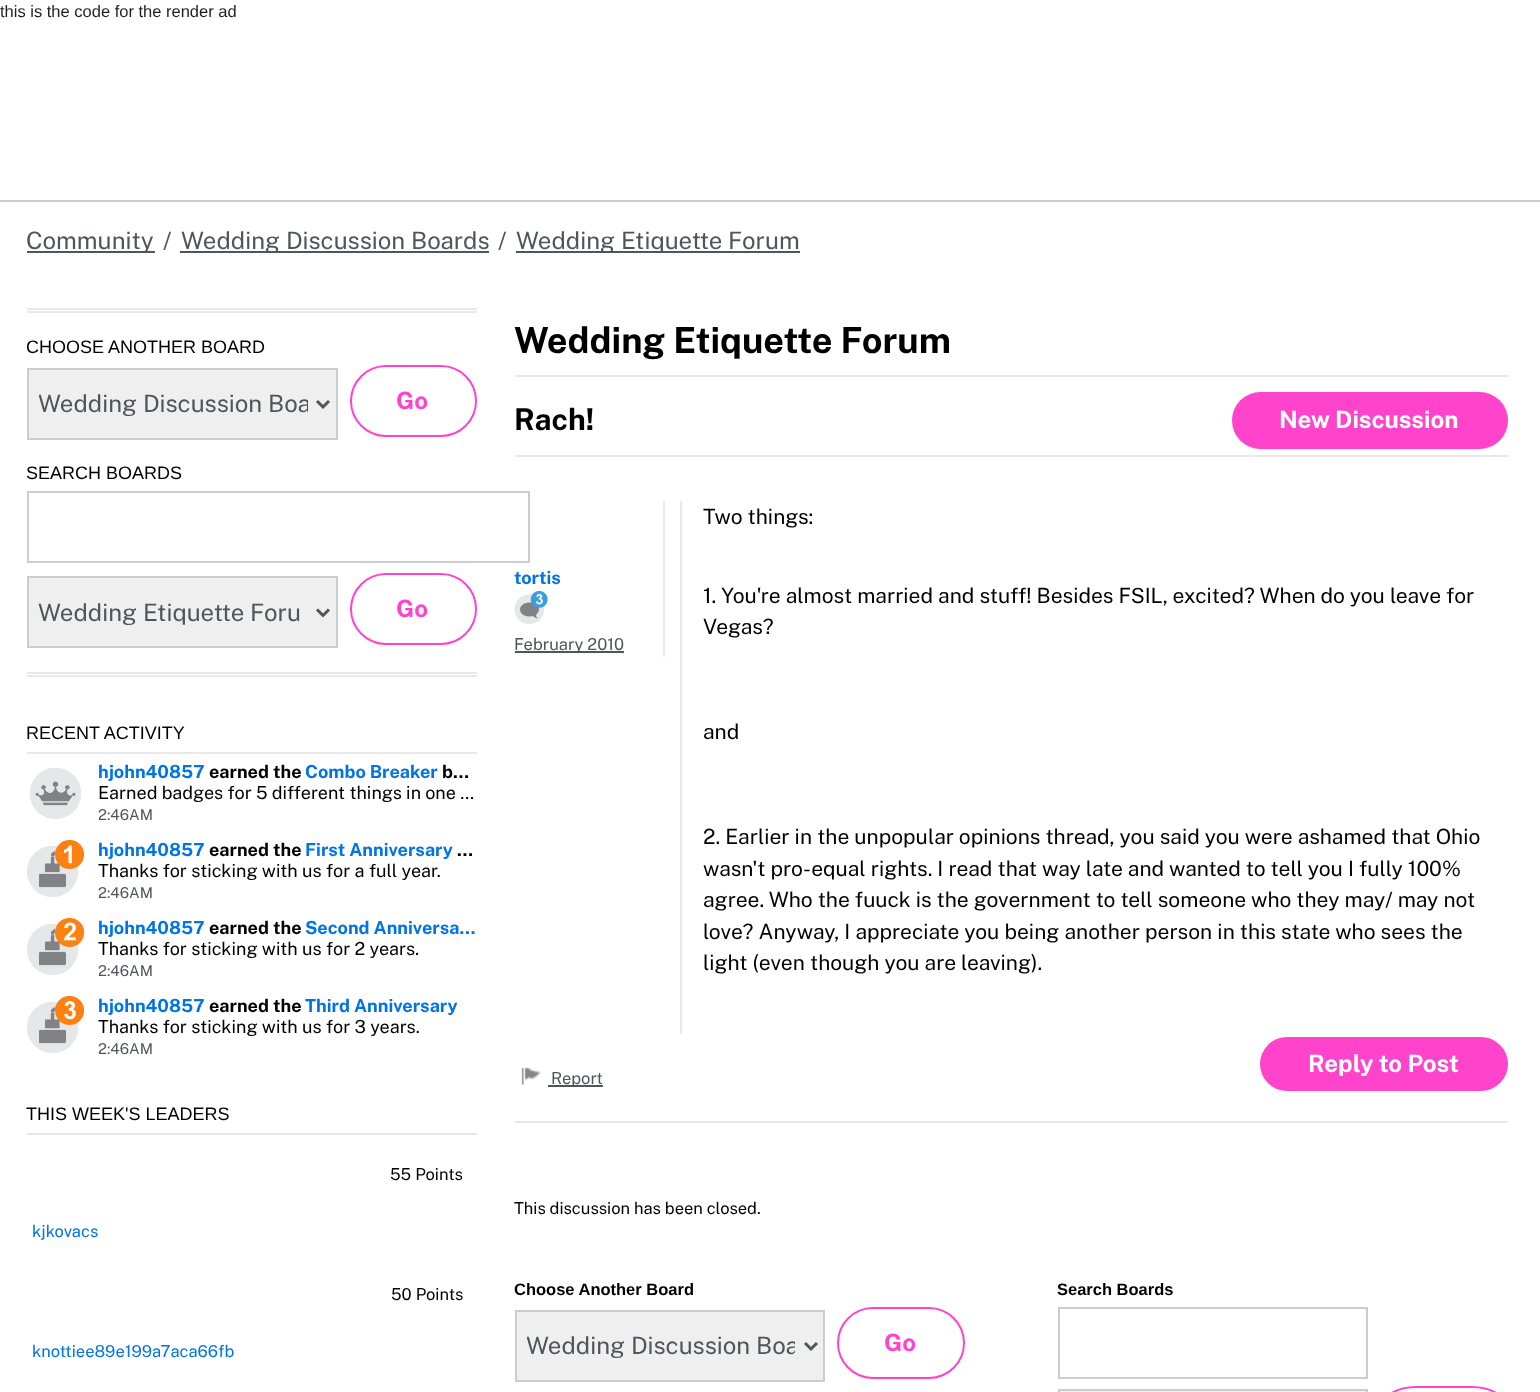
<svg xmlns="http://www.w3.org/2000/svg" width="1540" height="1392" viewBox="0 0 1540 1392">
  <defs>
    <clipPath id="clip1"><path d="M39 389h269v31H39z"/></clipPath>
    <clipPath id="clip2"><path d="M527 1331h268v31H527z"/></clipPath>
  </defs>
  <rect width="100%" height="100%" fill="#fff"/>
  <path d="M0 200h1540v2H0z" fill="#ccc"/>
  <path d="M27 251h128v2H27z" fill="#51545c"/>
  <path d="M180 251h309v2H180z" fill="#51545c"/>
  <path d="M516 251h284v2H516z" fill="#51545c"/>
  <path d="M27 308h450v2H27z" fill="#e9e9e9"/>
  <path d="M27 311h450v2H27z" fill="#e9e9e9"/>
  <path d="M27 672h450v2H27z" fill="#e9e9e9"/>
  <path d="M27 675h450v2H27z" fill="#e9e9e9"/>
  <path d="M28 369h309v70H28z" fill="#efefef" stroke="#caccd0" stroke-width="2"/>
  <path d="M317 401L323 407L329 401" fill="none" stroke="#51545c" stroke-width="3"/>
  <rect x="351" y="366" width="125" height="70" rx="35" fill="none" stroke="#ff44cb" stroke-width="2"/>
  <path d="M28 492h501v70H28z" fill="none" stroke="#caccd0" stroke-width="2"/>
  <path d="M28 577h309v70H28z" fill="#efefef" stroke="#caccd0" stroke-width="2"/>
  <path d="M317 609.5L323 615.5L329 609.5" fill="none" stroke="#51545c" stroke-width="3"/>
  <rect x="351" y="574" width="125" height="70" rx="35" fill="none" stroke="#ff44cb" stroke-width="2"/>
  <path d="M27 752h450v2H27z" fill="#e9e9e9"/>
  <image x="30" y="768" width="51" height="51" href="img/1.png"/>
  <image x="27" y="840" width="57" height="57" href="img/2.png"/>
  <image x="27" y="918" width="57" height="57" href="img/3.png"/>
  <image x="27" y="996" width="57" height="57" href="img/4.png"/>
  <path d="M27 1133h450v2H27z" fill="#e9e9e9"/>
  <path d="M515 375h993v2H515z" fill="#e9e9e9"/>
  <path d="M515 455h993v2H515z" fill="#e9e9e9"/>
  <path d="M515 1121h993v2H515z" fill="#e9e9e9"/>
  <path d="M680 501h2v533H680z" fill="#e9e9e9"/>
  <rect x="1260" y="1037" width="248" height="54" rx="27" fill="#ff44cb"/>
  <image x="521" y="1067" width="20" height="18" href="img/5.png"/>
  <path d="M548 1085h55v2H548z" fill="#51545c"/>
  <path d="M663 501h2v156H663z" fill="#e9e9e9"/>
  <image x="514" y="591" width="34" height="33" href="img/6.png"/>
  <path d="M515 651h109v2H515z" fill="#51545c"/>
  <rect x="1232" y="392" width="276" height="57" rx="28.5" fill="#ff44cb"/>
  <path d="M1059 1308h308v70H1059z" fill="none" stroke="#caccd0" stroke-width="2"/>
  <path d="M1059 1390h308v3H1059z" fill="#efefef" stroke="#caccd0" stroke-width="2"/>
  <rect x="1381" y="1387" width="126" height="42" rx="35" fill="none" stroke="#ff44cb" stroke-width="2"/>
  <path d="M516 1311h308v70H516z" fill="#efefef" stroke="#caccd0" stroke-width="2"/>
  <path d="M805 1343L811 1349L817 1343" fill="none" stroke="#51545c" stroke-width="3"/>
  <rect x="838" y="1308" width="126" height="70" rx="35" fill="none" stroke="#ff44cb" stroke-width="2"/>
  <text x="0" y="17" font-family="Liberation Sans" font-size="16.5" fill="#1f1f1f">this is the code for the render ad</text>
  <g font-family="Public Sans" font-size="24" fill="#51545c">
    <text x="26" y="249">Community</text>
    <text x="163" y="249">/</text>
    <text x="181" y="249">Wedding Discussion Boards</text>
    <text x="498" y="249">/</text>
    <text x="516" y="249">Wedding Etiquette Forum</text>
  </g>
  <text x="26" y="353" font-family="Liberation Sans" font-size="18" fill="#000">CHOOSE ANOTHER BOARD</text>
  <g clip-path="url(#clip1)">
    <text x="38" y="412" font-family="Public Sans" font-size="24" fill="#51545c">Wedding Discussion Boa</text>
  </g>
  <text x="396" y="409" font-family="Public Sans" font-size="24" font-weight="bold" fill="#ff44cb">Go</text>
  <text x="26" y="479" font-family="Liberation Sans" font-size="18" fill="#000">SEARCH BOARDS</text>
  <text x="38" y="621" font-family="Public Sans" font-size="24" fill="#51545c">Wedding Etiquette Foru</text>
  <text x="396" y="617" font-family="Public Sans" font-size="24" font-weight="bold" fill="#ff44cb">Go</text>
  <text x="26" y="739" font-family="Liberation Sans" font-size="18" fill="#000">RECENT ACTIVITY</text>
  <text x="98" y="778" font-family="Public Sans" font-size="18" font-weight="bold" fill="#0073e6">hjohn40857</text>
  <text x="209" y="778" font-family="Public Sans" font-size="18" font-weight="bold" fill="#000">earned the</text>
  <text x="305" y="778" font-family="Public Sans" font-size="18" font-weight="bold" fill="#0073e6">Combo Breaker</text>
  <text x="442" y="778" font-family="Public Sans" font-size="18" font-weight="bold" fill="#000">b…</text>
  <text x="98" y="799" font-family="Public Sans" font-size="18" fill="#000">Earned badges for 5 different things in one …</text>
  <text x="98" y="820" font-family="Public Sans" font-size="15" fill="#51545c">2:46AM</text>
  <text x="98" y="856" font-family="Public Sans" font-size="18" font-weight="bold" fill="#0073e6">hjohn40857</text>
  <text x="209" y="856" font-family="Public Sans" font-size="18" font-weight="bold" fill="#000">earned the</text>
  <text x="305" y="856" font-family="Public Sans" font-size="18" font-weight="bold" fill="#0073e6">First Anniversary</text>
  <text x="457" y="856" font-family="Public Sans" font-size="18" font-weight="bold" fill="#000">…</text>
  <text x="98" y="877" font-family="Public Sans" font-size="18" fill="#000">Thanks for sticking with us for a full year.</text>
  <text x="98" y="898" font-family="Public Sans" font-size="15" fill="#51545c">2:46AM</text>
  <text x="98" y="934" font-family="Public Sans" font-size="18" font-weight="bold" fill="#0073e6">hjohn40857</text>
  <text x="209" y="934" font-family="Public Sans" font-size="18" font-weight="bold" fill="#000">earned the</text>
  <text x="305" y="934" font-family="Public Sans" font-size="18" font-weight="bold" fill="#0073e6">Second Anniversa…</text>
  <text x="98" y="955" font-family="Public Sans" font-size="18" fill="#000">Thanks for sticking with us for 2 years.</text>
  <text x="98" y="976" font-family="Public Sans" font-size="15" fill="#51545c">2:46AM</text>
  <text x="98" y="1012" font-family="Public Sans" font-size="18" font-weight="bold" fill="#0073e6">hjohn40857</text>
  <text x="209" y="1012" font-family="Public Sans" font-size="18" font-weight="bold" fill="#000">earned the</text>
  <text x="305" y="1012" font-family="Public Sans" font-size="18" font-weight="bold" fill="#0073e6">Third Anniversary</text>
  <text x="98" y="1033" font-family="Public Sans" font-size="18" fill="#000">Thanks for sticking with us for 3 years.</text>
  <text x="98" y="1054" font-family="Public Sans" font-size="15" fill="#51545c">2:46AM</text>
  <text x="26" y="1120" font-family="Liberation Sans" font-size="18" fill="#000">THIS WEEK'S LEADERS</text>
  <text x="390" y="1180" font-family="Public Sans" font-size="16.5" fill="#000">55 Points</text>
  <text x="32" y="1237" font-family="Public Sans" font-size="16.5" fill="#0073e6">kjkovacs</text>
  <text x="391" y="1300" font-family="Public Sans" font-size="16.5" fill="#000">50 Points</text>
  <text x="32" y="1357" font-family="Public Sans" font-size="16.5" fill="#0073e6">knottiee89e199a7aca66fb</text>
  <text x="514" y="353" font-family="Public Sans" font-size="36" font-weight="bold" fill="#000">Wedding Etiquette Forum</text>
  <text x="514" y="430" font-family="Public Sans" font-size="30" font-weight="bold" fill="#000">Rach!</text>
  <g font-family="Public Sans" font-size="21" fill="#000">
    <text x="703" y="524">Two things:</text>
    <text x="703" y="603">1. You're almost married and stuff! Besides FSIL, excited? When do you leave for</text>
    <text x="703" y="634">Vegas?</text>
    <text x="703" y="739">and</text>
    <text x="703" y="844">2. Earlier in the unpopular opinions thread, you said you were ashamed that Ohio</text>
    <text x="703" y="876">wasn't pro-equal rights. I read that way late and wanted to tell you I fully 100%</text>
    <text x="703" y="907">agree. Who the fuuck is the government to tell someone who they may/ may not</text>
    <text x="703" y="939">love? Anyway, I appreciate you being another person in this state who sees the</text>
    <text x="703" y="970">light (even though you are leaving).</text>
  </g>
  <text x="1308" y="1072" font-family="Public Sans" font-size="24" font-weight="bold" fill="#fff">Reply to Post</text>
  <text x="551" y="1084" font-family="Public Sans" font-size="16.5" fill="#51545c">Report</text>
  <text x="514" y="584" font-family="Public Sans" font-size="18" font-weight="bold" fill="#0073e6">tortis</text>
  <text x="514" y="650" font-family="Public Sans" font-size="16.5" fill="#51545c">February 2010</text>
  <text x="1279" y="428" font-family="Public Sans" font-size="24" font-weight="bold" fill="#fff">New Discussion</text>
  <text x="514" y="1214" font-family="Public Sans" font-size="16.5" fill="#000">This discussion has been closed.</text>
  <g font-family="Liberation Sans" font-size="16.5" font-weight="bold" fill="#000">
    <text x="514" y="1295">Choose Another Board</text>
    <text x="1057" y="1295">Search Boards</text>
  </g>
  <g clip-path="url(#clip2)">
    <text x="526" y="1354" font-family="Public Sans" font-size="24" fill="#51545c">Wedding Discussion Boa</text>
  </g>
  <text x="884" y="1351" font-family="Public Sans" font-size="24" font-weight="bold" fill="#ff44cb">Go</text>
</svg>
